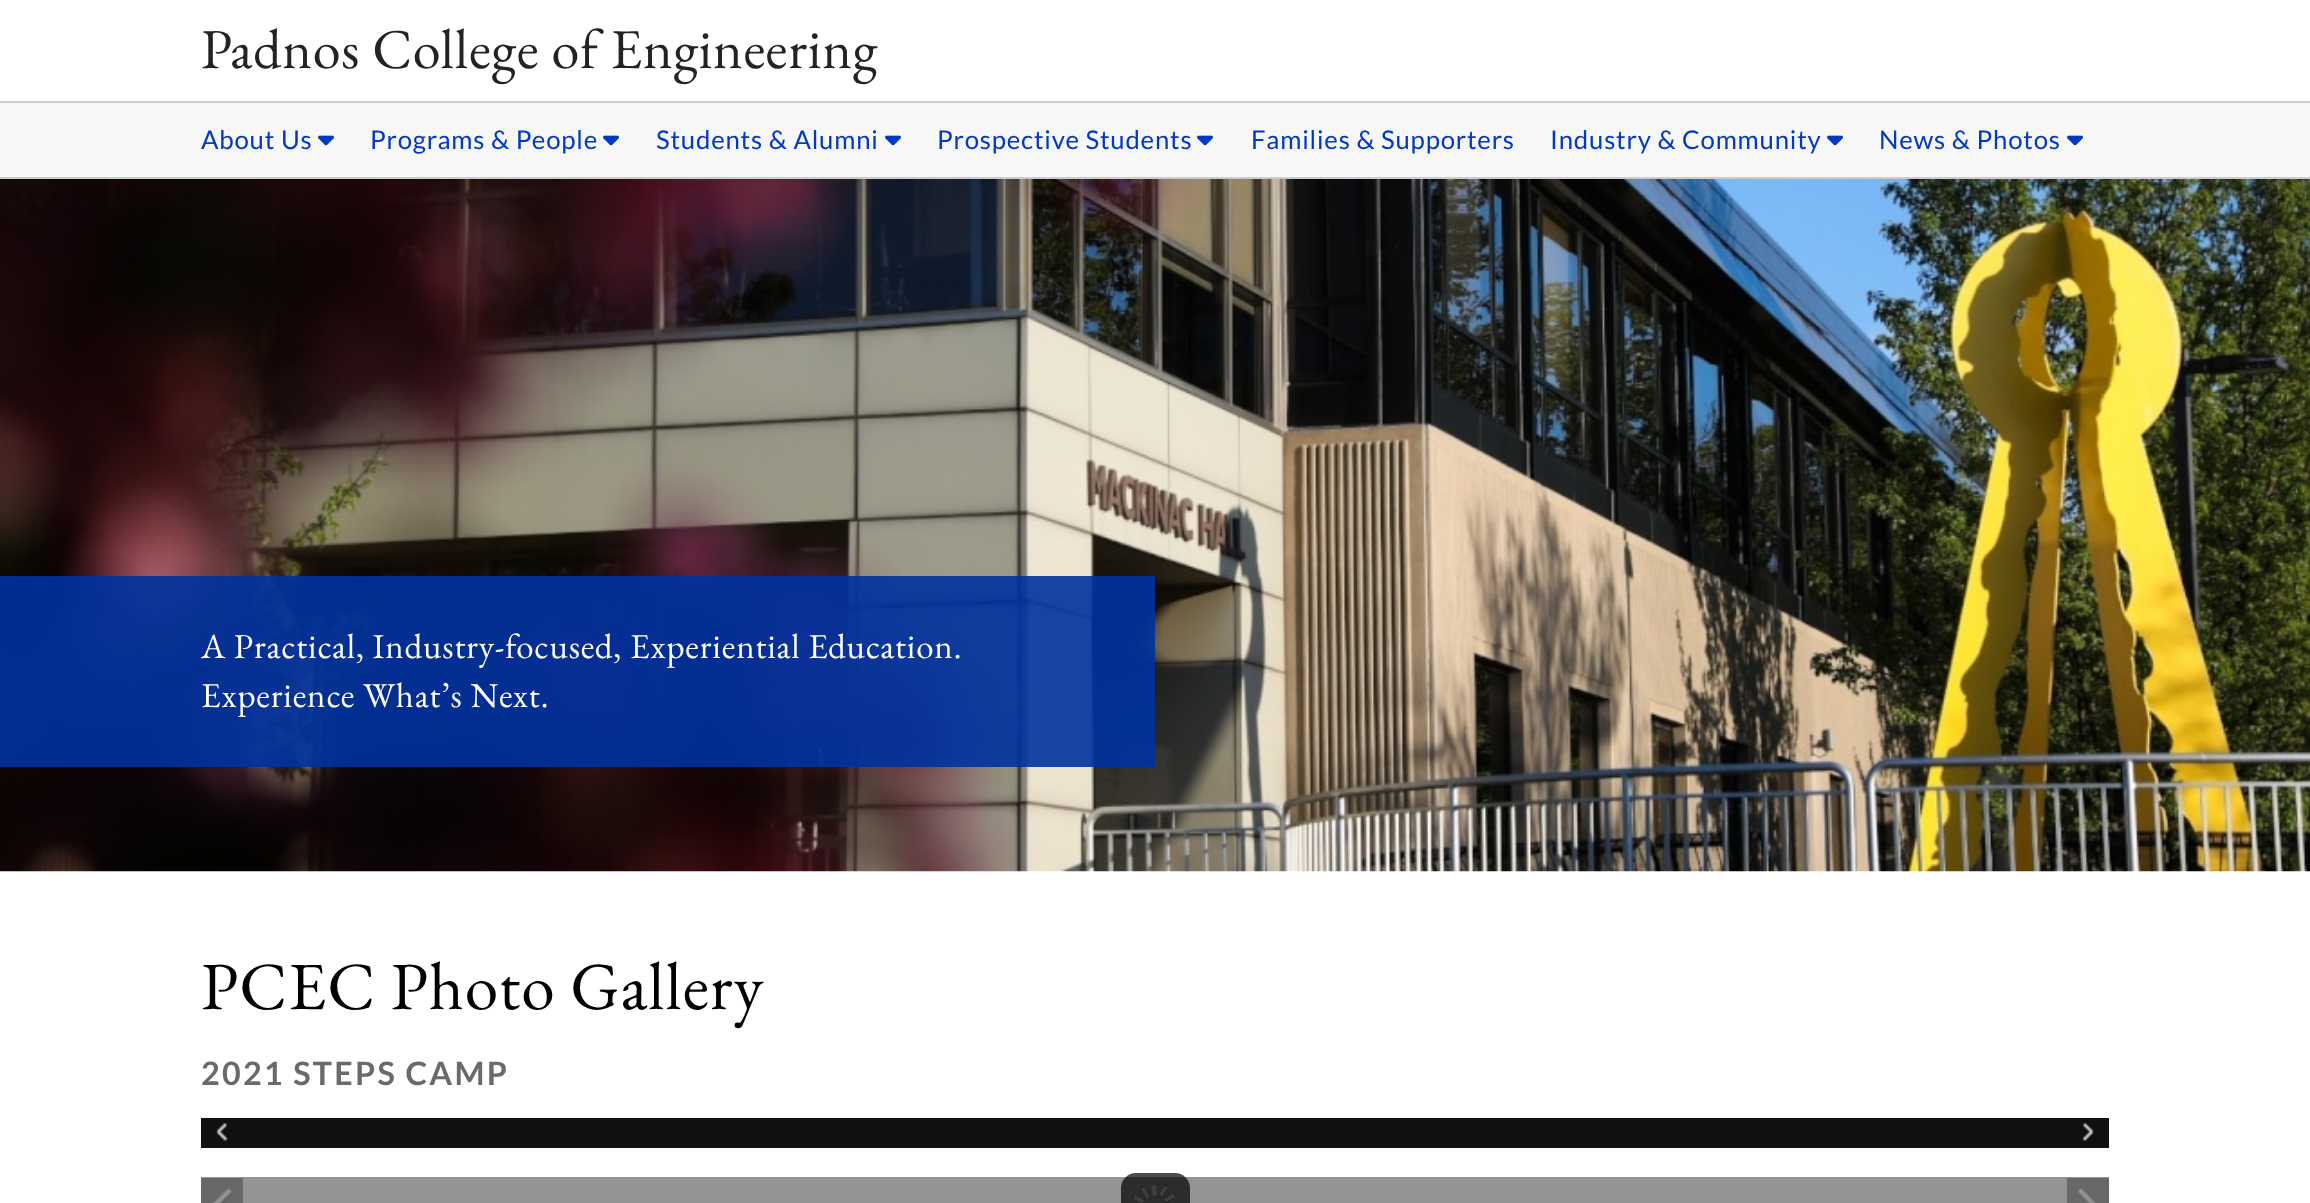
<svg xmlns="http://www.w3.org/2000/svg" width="2310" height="1203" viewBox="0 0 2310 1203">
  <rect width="100%" height="100%" fill="#fff"/>
  <path d="M0 103h2310v74H0z" fill="#f7f7f7"/>
  <path d="M0 101h2310v2H0z" fill="#ccc"/>
  <path d="M0 177h2310v2H0z" fill="#ccc"/>
  <image x="318" y="135" width="16" height="11" href="img/1.png"/>
  <image x="603" y="135" width="16" height="11" href="img/1.png"/>
  <image x="885" y="135" width="16" height="11" href="img/1.png"/>
  <image x="1197" y="135" width="16" height="11" href="img/1.png"/>
  <image x="1827" y="135" width="16" height="11" href="img/1.png"/>
  <image x="2067" y="135" width="16" height="11" href="img/1.png"/>
  <image x="0" y="179" width="2310" height="693" href="img/2.png"/>
  <path d="M0 576h1155v191H0z" fill="#0032a0e6"/>
  <path d="M201 1118h1908v30H201z" fill="#101010"/>
  <image x="216" y="1122" width="12" height="20" href="img/3.png"/>
  <image x="2082" y="1122" width="12" height="20" href="img/4.png"/>
  <path d="M201 1177h1908v26H201z" fill="#949494"/>
  <rect x="1121" y="1173" width="69" height="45" rx="15" fill="#000000b3"/>
  <image x="1132" y="1183" width="44" height="20" href="img/5.png"/>
  <path d="M201 1178h42v25H201z" fill="#686868"/>
  <image x="213" y="1188" width="20" height="15" href="img/6.png"/>
  <path d="M2067 1178h42v25H2067z" fill="#686868"/>
  <image x="2078" y="1188" width="18" height="15" href="img/7.png"/>
  <text x="201" y="68" font-family="EB Garamond" font-size="56.3" letter-spacing="0.7" fill="#232323">Padnos College of Engineering</text>
  <g font-family="Lato" font-size="25.75" letter-spacing="0.8" fill="#0039c5">
    <text x="201" y="149">About Us</text>
    <text x="370" y="149">Programs &amp; People</text>
    <text x="656" y="149">Students &amp; Alumni</text>
    <text x="937" y="149">Prospective Students</text>
    <text x="1251" y="149">Families &amp; Supporters</text>
    <text x="1550" y="149">Industry &amp; Community</text>
    <text x="1879" y="149">News &amp; Photos</text>
  </g>
  <g font-family="EB Garamond" font-size="35" letter-spacing="0.8" fill="#fff">
    <text x="201" y="658">A Practical, Industry-focused, Experiential Education.</text>
    <text x="201" y="707">Experience What’s Next.</text>
  </g>
  <text x="201" y="1009" font-family="EB Garamond" font-size="67.5" letter-spacing="1" fill="#000">PCEC Photo Gallery</text>
  <text x="201" y="1085" font-family="Lato" font-size="32.25" font-weight="bold" letter-spacing="2.25" fill="#6a6a6a">2021 STEPS CAMP</text>
</svg>
